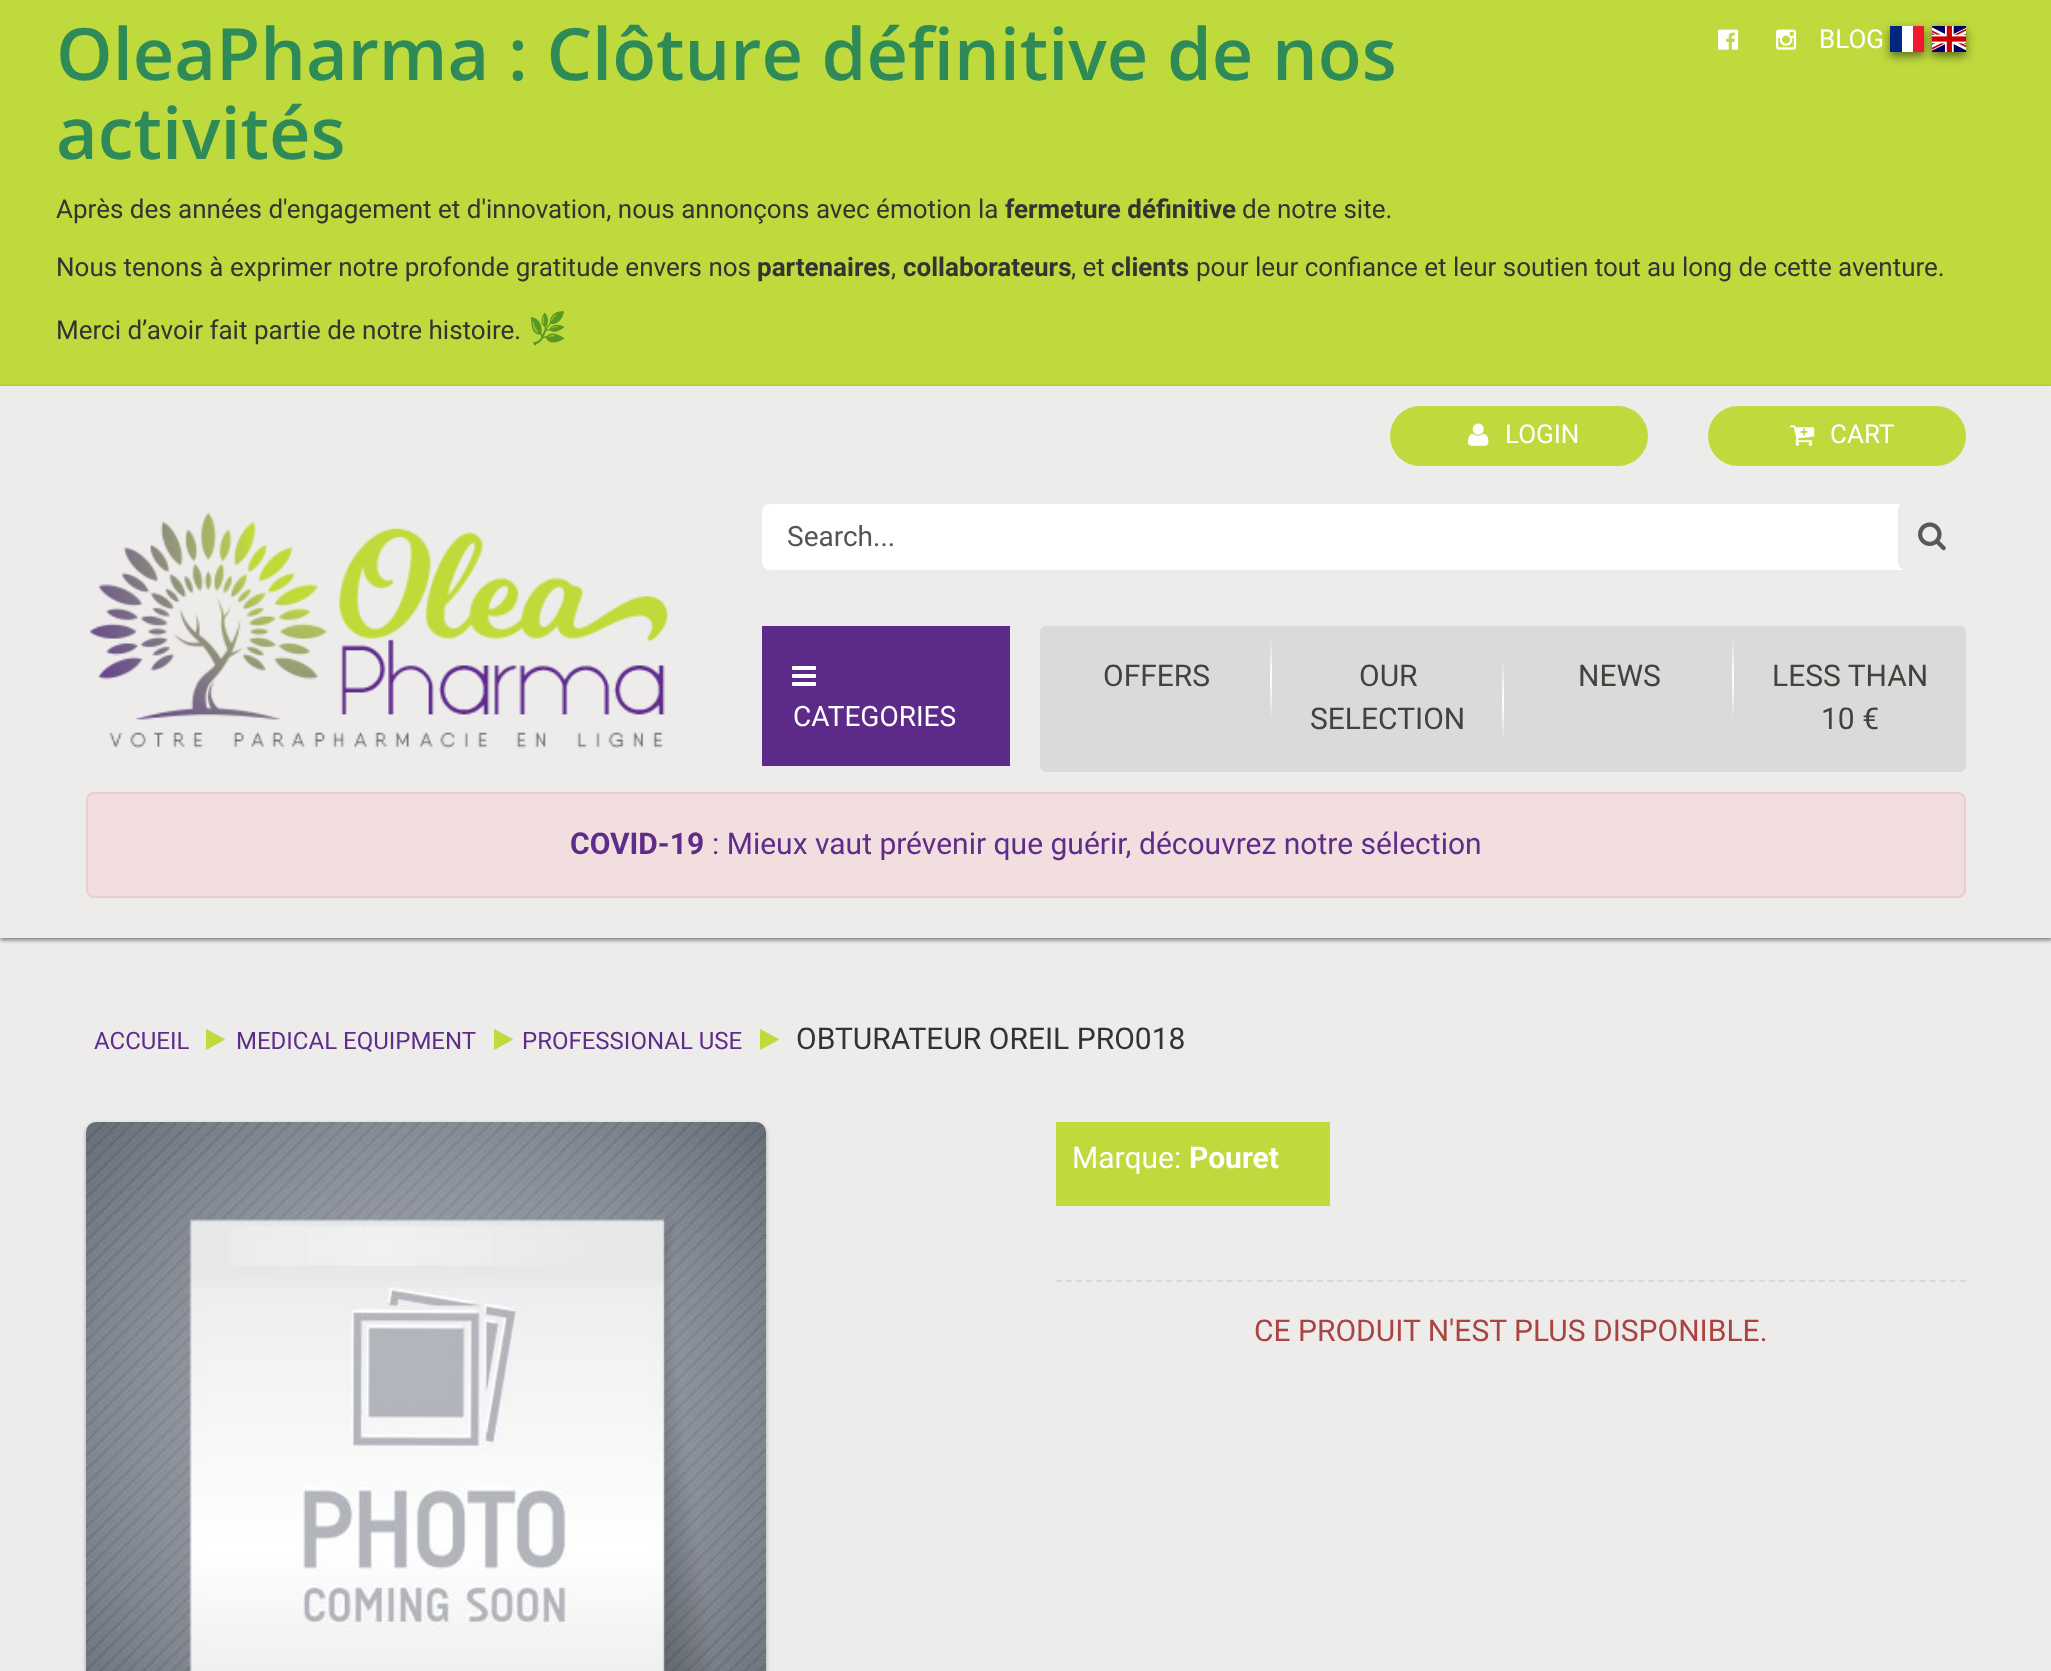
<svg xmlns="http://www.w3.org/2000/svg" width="2051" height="1671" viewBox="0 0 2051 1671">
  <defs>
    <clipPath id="clip1"><path d="M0 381H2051V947H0ZM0 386H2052V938H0Z" clip-rule="evenodd"/></clipPath>
  </defs>
  <rect width="100%" height="100%" fill="#eeeceb"/>
  <path d="M0 0h2051v386H0z" fill="#beda3d"/>
  <image x="1718" y="29" width="21" height="21" href="img/1.png"/>
  <image x="1776" y="29" width="21" height="21" href="img/2.png"/>
  <path d="M1890 30h34v26H1890z" fill="#00000080" filter="blur(5px)"/>
  <path d="M1902 26h11v26H1902z" fill="#fff"/>
  <path d="M1890 26h12v26H1890z" fill="#00267f"/>
  <path d="M1913 26h11v26H1913z" fill="#f31830"/>
  <path d="M1932 30h34v26H1932z" fill="#00000080" filter="blur(5px)"/>
  <image x="1932" y="26" width="34" height="26" href="img/3.png"/>
  <g clip-path="url(#clip1)">
    <path d="M0 388h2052v552H0z" fill="#00000080" filter="blur(2px)"/>
  </g>
  <rect x="1390" y="406" width="258" height="60" rx="30" fill="#beda3d"/>
  <image x="1468" y="423" width="21" height="23" href="img/4.png"/>
  <rect x="1708" y="406" width="258" height="60" rx="30" fill="#beda3d"/>
  <image x="1790" y="425" width="25" height="21" href="img/5.png"/>
  <image x="90" y="512" width="578" height="236" href="img/6.png"/>
  <rect x="762" y="502" width="1174" height="68" rx="8" fill="#fff"/>
  <path d="M770 504H1928C1932 504 1936 508 1936 512V510C1936 506 1932 502 1928 502H770C766 502 762 506 762 510V512C762 508 766 504 770 504Z" fill="#00000012"/>
  <rect x="1898" y="502" width="68" height="68" rx="8" fill="#eeeceb"/>
  <image x="1918" y="522" width="28" height="29" href="img/7.png"/>
  <path d="M762 626h248v140H762z" fill="#5d2a8a"/>
  <image x="792" y="666" width="24" height="20" href="img/8.png"/>
  <rect x="1040" y="626" width="926" height="146" rx="6" fill="#dadada"/>
  <image x="1270" y="640" width="2" height="76" href="img/9.png"/>
  <image x="1502" y="662" width="2" height="76" href="img/9.png"/>
  <image x="1732" y="640" width="2" height="76" href="img/9.png"/>
  <rect x="87" y="793" width="1878" height="104" rx="7" fill="#f2dede" stroke="#ebccd1" stroke-width="2"/>
  <image x="206" y="1029" width="19" height="21" href="img/10.png"/>
  <image x="494" y="1029" width="19" height="21" href="img/10.png"/>
  <image x="760" y="1029" width="19" height="21" href="img/10.png"/>
  <rect x="86" y="1124" width="680" height="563" rx="10" fill="#0000004d" filter="blur(2px)"/>
  <image x="86" y="1122" width="680" height="549" href="img/11.png"/>
  <path d="M1056 1122h274v84H1056z" fill="#beda3d"/>
  <path d="M1056 1281H1966" fill="none" stroke="#d9d9d9" stroke-width="2" stroke-dasharray="6 4.04"/>
  <g font-family="Open Sans" font-size="72" font-weight="600" fill="#2e8b57">
    <text x="56" y="80">OleaPharma : Clôture définitive de nos</text>
    <text x="56" y="159">activités</text>
  </g>
  <text x="56" y="218" font-family="Roboto" font-size="26" fill="#333">Après des années d'engagement et d'innovation, nous annonçons avec émotion la</text>
  <text x="1005" y="218" font-family="Roboto" font-size="26" font-weight="bold" fill="#333">fermeture définitive</text>
  <g font-family="Roboto" font-size="26" fill="#333">
    <text x="1242" y="218">de notre site.</text>
    <text x="56" y="276">Nous tenons à exprimer notre profonde gratitude envers nos</text>
  </g>
  <text x="757" y="276" font-family="Roboto" font-size="26" font-weight="bold" fill="#333">partenaires</text>
  <text x="891" y="276" font-family="Roboto" font-size="26" fill="#333">,</text>
  <text x="903" y="276" font-family="Roboto" font-size="26" font-weight="bold" fill="#333">collaborateurs</text>
  <text x="1071" y="276" font-family="Roboto" font-size="26" fill="#333">, et</text>
  <text x="1111" y="276" font-family="Roboto" font-size="26" font-weight="bold" fill="#333">clients</text>
  <g font-family="Roboto" font-size="26" fill="#333">
    <text x="1196" y="276">pour leur confiance et leur soutien tout au long de cette aventure.</text>
    <text x="56" y="339">Merci d’avoir fait partie de notre histoire.</text>
  </g>
  <text x="528" y="339" font-family="Noto Color Emoji" font-size="31" fill="#333">🌿</text>
  <g font-family="Roboto" font-size="26" fill="#fff">
    <text x="1819" y="48">BLOG</text>
    <text x="1505" y="443">LOGIN</text>
    <text x="1830" y="443">CART</text>
  </g>
  <text x="787" y="546" font-family="Roboto" font-size="28" fill="#555">Search...</text>
  <text x="793" y="726" font-family="Roboto" font-size="28" fill="#fff">CATEGORIES</text>
  <g font-family="Roboto" font-size="30" fill="#43433e">
    <text x="1103" y="686">OFFERS</text>
    <text x="1359" y="686">OUR</text>
    <text x="1310" y="729">SELECTION</text>
    <text x="1578" y="686">NEWS</text>
    <text x="1772" y="686">LESS THAN</text>
    <text x="1821" y="729">10 €</text>
  </g>
  <text x="570" y="854" font-family="Roboto" font-size="30" font-weight="bold" fill="#5e2c8a">COVID-19</text>
  <text x="712" y="854" font-family="Roboto" font-size="30" fill="#5e2c8a">: Mieux vaut prévenir que guérir, découvrez notre sélection</text>
  <g font-family="Roboto" font-size="24" fill="#5e2c8a">
    <text x="94" y="1049">ACCUEIL</text>
    <text x="236" y="1049">MEDICAL EQUIPMENT</text>
    <text x="522" y="1049">PROFESSIONAL USE</text>
  </g>
  <text x="796" y="1049" font-family="Roboto" font-size="30" fill="#333">OBTURATEUR OREIL PRO018</text>
  <text x="1072" y="1168" font-family="Roboto" font-size="30" fill="#fff">Marque:</text>
  <text x="1189" y="1168" font-family="Roboto" font-size="30" font-weight="bold" fill="#fff">Pouret</text>
  <text x="1254" y="1341" font-family="Roboto" font-size="30" fill="#a94442">CE PRODUIT N'EST PLUS DISPONIBLE.</text>
</svg>
